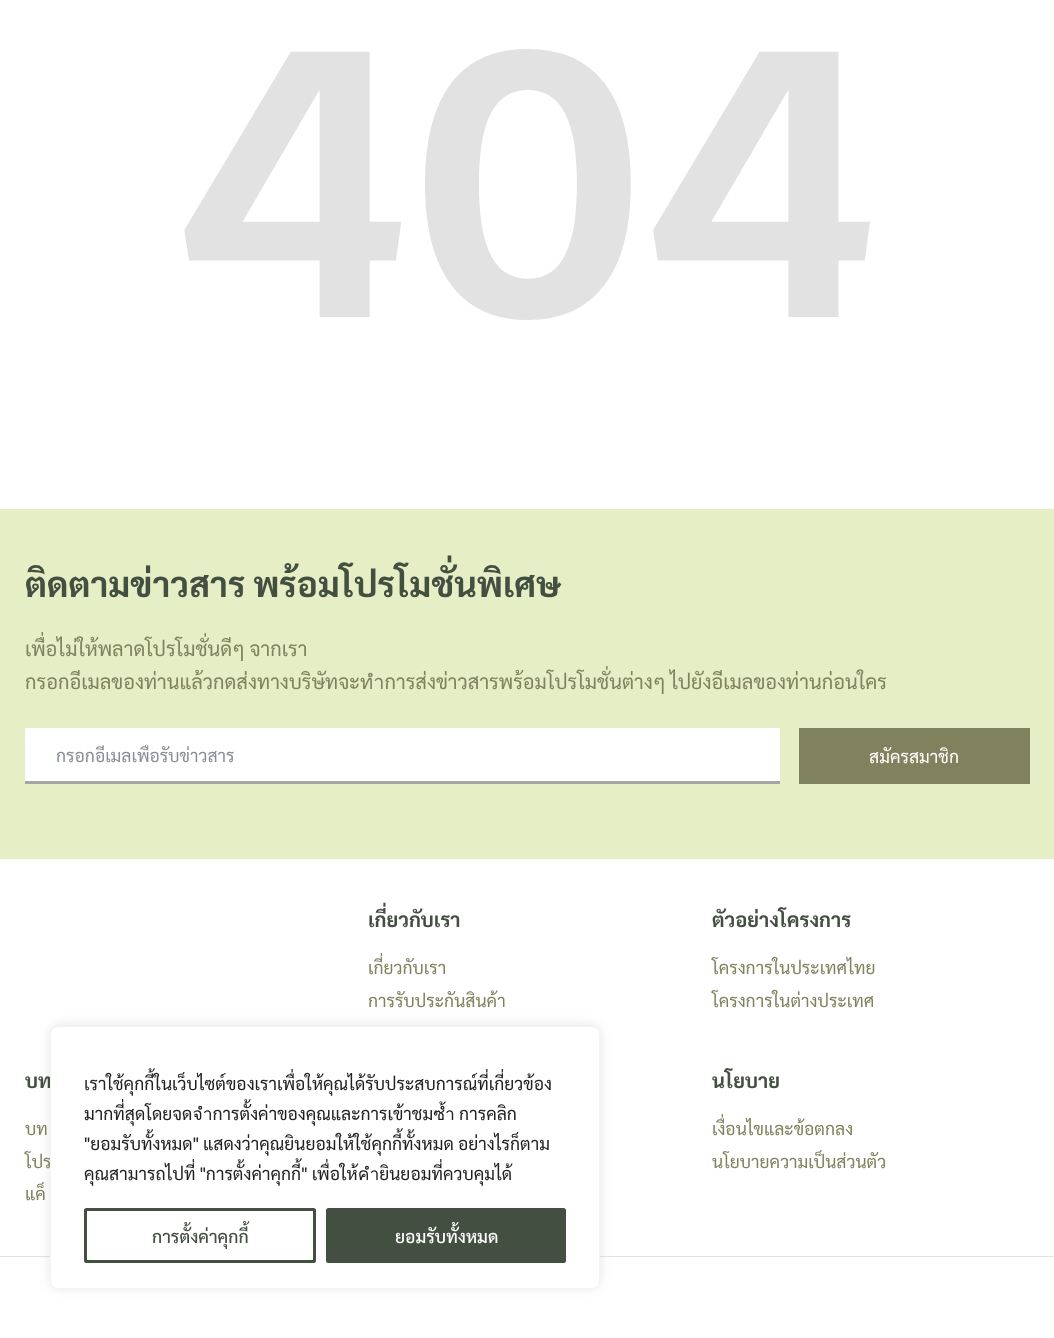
<svg xmlns="http://www.w3.org/2000/svg" width="1054" height="1338" viewBox="0 0 1054 1338">
  <defs>
    <clipPath id="clip1"><path d="M44 744h717v22H44z"/></clipPath>
  </defs>
  <rect width="100%" height="100%" fill="#fff"/>
  <path d="M0 509h1054v350H0z" fill="#e5eec4"/>
  <path d="M25 728h755v53H25z" fill="#fff"/>
  <path d="M25 781h755v3H25z" fill="#a5a5a5"/>
  <path d="M799 728h231v56H799z" fill="#80815d"/>
  <path d="M0 1256h1054v1H0z" fill="#e3e3e3"/>
  <rect x="50" y="1025" width="550" height="263" rx="8" fill="#acabab4d" filter="blur(6px)"/>
  <text x="179" y="317" font-family="Sarala" font-size="374" font-weight="bold" fill="#e2e2e2">404</text>
  <text x="25" y="597" font-family="Sarabun" font-size="35" font-weight="bold" fill="#434f41">ติดตามข่าวสาร พร้อมโปรโมชั่นพิเศษ</text>
  <g font-family="Sarabun" font-size="20" fill="#80815d">
    <text x="25" y="656">เพื่อไม่ให้พลาดโปรโมชั่นดีๆ จากเรา</text>
    <text x="25" y="689">กรอกอีเมลของท่านแล้วกดส่งทางบริษัทจะทำการส่งข่าวสารพร้อมโปรโมชั่นต่างๆ ไปยังอีเมลของท่านก่อนใคร</text>
  </g>
  <g clip-path="url(#clip1)">
    <text x="56" y="762" font-family="Sarabun" font-size="17.5" fill="#868e96">กรอกอีเมลเพื่อรับข่าวสาร</text>
  </g>
  <text x="869" y="763" font-family="Sarabun" font-size="17.5" fill="#fff">สมัครสมาชิก</text>
  <text x="368" y="927" font-family="Sarabun" font-size="20" font-weight="bold" fill="#434f41">เกี่ยวกับเรา</text>
  <g font-family="Sarabun" font-size="17.5" fill="#80815d">
    <text x="368" y="974">เกี่ยวกับเรา</text>
    <text x="368" y="1007">การรับประกันสินค้า</text>
  </g>
  <text x="712" y="927" font-family="Sarabun" font-size="20" font-weight="bold" fill="#434f41">ตัวอย่างโครงการ</text>
  <g font-family="Sarabun" font-size="17.5" fill="#80815d">
    <text x="712" y="974">โครงการในประเทศไทย</text>
    <text x="712" y="1007">โครงการในต่างประเทศ</text>
  </g>
  <text x="25" y="1088" font-family="Sarabun" font-size="20" font-weight="bold" fill="#434f41">บท</text>
  <g font-family="Sarabun" font-size="17.5" fill="#80815d">
    <text x="25" y="1135">บท</text>
    <text x="25" y="1168">โปร</text>
    <text x="25" y="1200">แค็</text>
  </g>
  <text x="712" y="1088" font-family="Sarabun" font-size="20" font-weight="bold" fill="#434f41">นโยบาย</text>
  <g font-family="Sarabun" font-size="17.5" fill="#80815d">
    <text x="712" y="1135">เงื่อนไขและข้อตกลง</text>
    <text x="712" y="1168">นโยบายความเป็นส่วนตัว</text>
  </g>
  <rect x="50.5" y="1026.5" width="549" height="262" rx="7.5" fill="#fff" stroke="#f4f4f4"/>
  <g font-family="Sarabun" font-size="17.5" fill="#212121">
    <text x="84" y="1090">เราใช้คุกกี้ในเว็บไซต์ของเราเพื่อให้คุณได้รับประสบการณ์ที่เกี่ยวข้อง</text>
    <text x="84" y="1120">มากที่สุดโดยจดจำการตั้งค่าของคุณและการเข้าชมซ้ำ การคลิก</text>
    <text x="84" y="1150">"ยอมรับทั้งหมด" แสดงว่าคุณยินยอมให้ใช้คุกกี้ทั้งหมด อย่างไรก็ตาม</text>
    <text x="84" y="1180">คุณสามารถไปที่ "การตั้งค่าคุกกี้" เพื่อให้คำยินยอมที่ควบคุมได้</text>
  </g>
  <rect x="85.5" y="1209.5" width="229" height="52" rx="1" fill="none" stroke="#434f41" stroke-width="3"/>
  <text x="152" y="1243" font-family="Sarabun" font-size="17.5" font-weight="500" fill="#434f41">การตั้งค่าคุกกี้</text>
  <rect x="327.5" y="1209.5" width="237" height="52" rx="1" fill="#434f41" stroke="#434f41" stroke-width="3"/>
  <text x="395" y="1243" font-family="Sarabun" font-size="17.5" font-weight="500" fill="#fff">ยอมรับทั้งหมด</text>
</svg>
